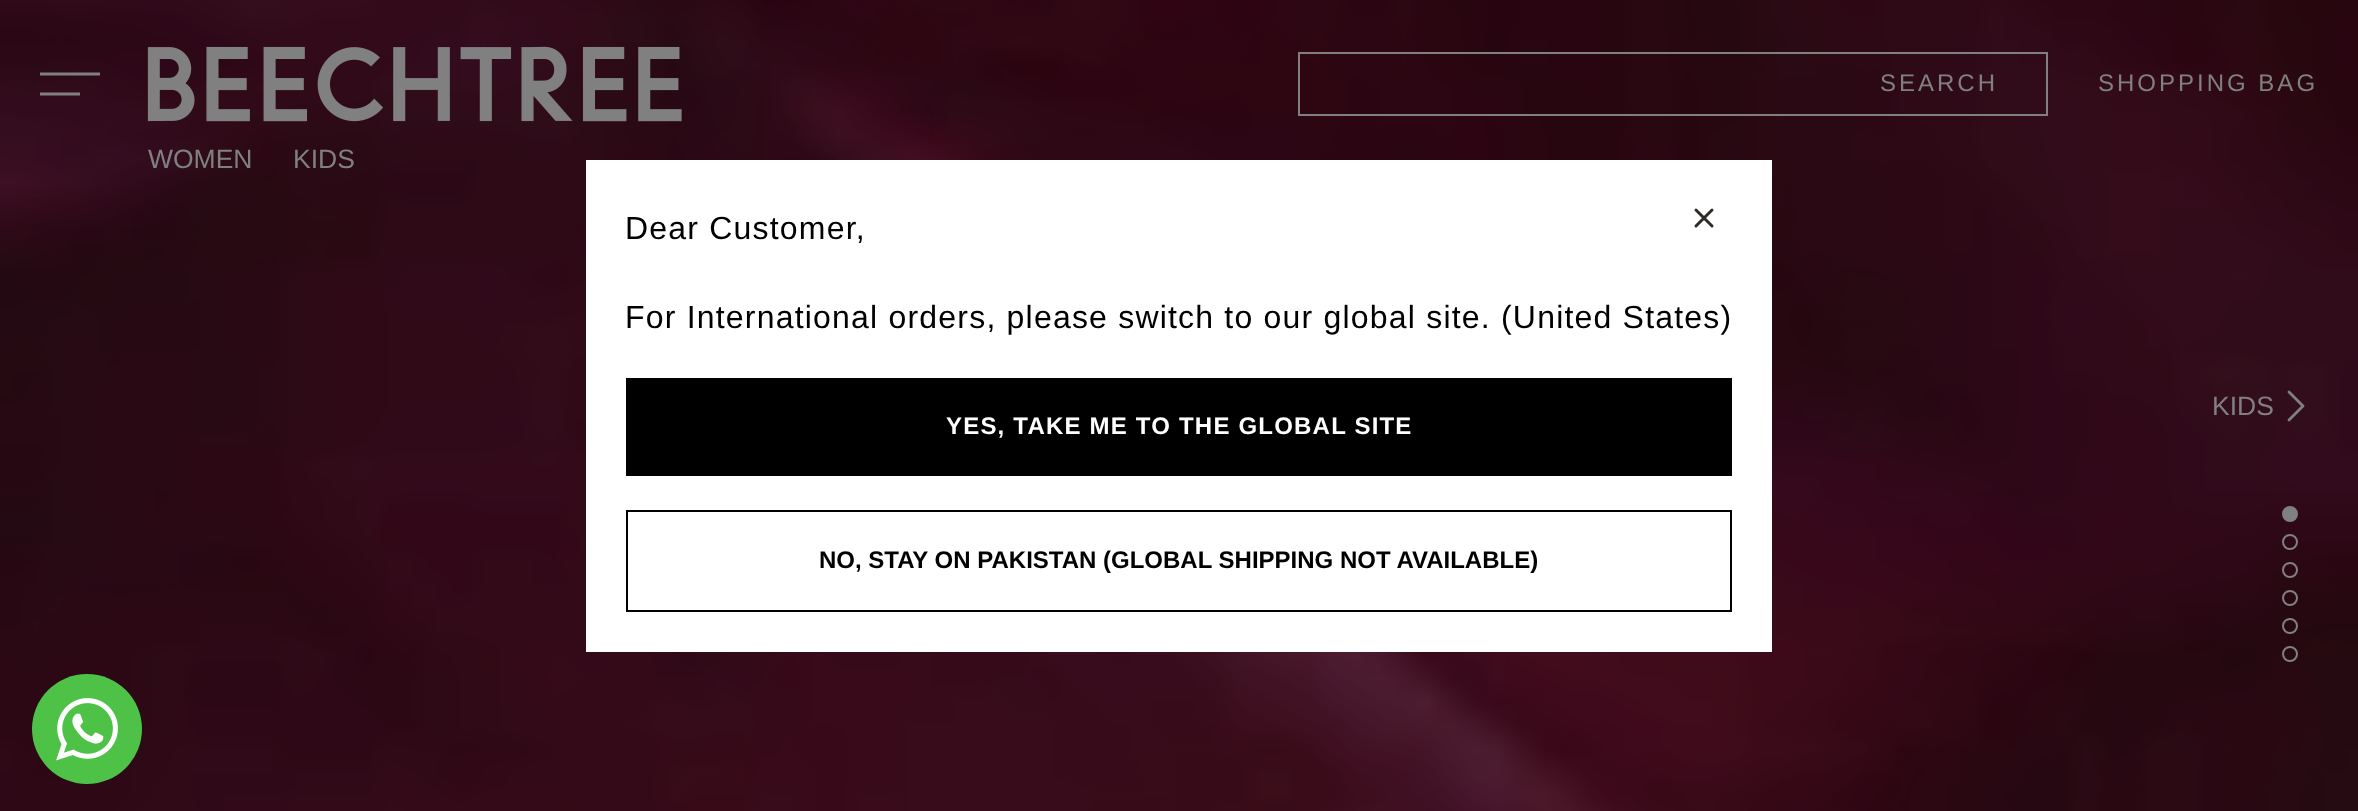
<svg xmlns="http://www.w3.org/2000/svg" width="2358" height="811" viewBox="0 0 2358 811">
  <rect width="100%" height="100%" fill="#fff"/>
  <image x="0" y="0" width="2358" height="811" href="img/1.png"/>
  <circle cx="2290" cy="514" r="7" fill="#808080" stroke="#808080" stroke-width="2"/>
  <circle cx="2290" cy="542" r="7" fill="none" stroke="#808080" stroke-width="2"/>
  <circle cx="2290" cy="570" r="7" fill="none" stroke="#808080" stroke-width="2"/>
  <circle cx="2290" cy="598" r="7" fill="none" stroke="#808080" stroke-width="2"/>
  <circle cx="2290" cy="626" r="7" fill="none" stroke="#808080" stroke-width="2"/>
  <circle cx="2290" cy="654" r="7" fill="none" stroke="#808080" stroke-width="2"/>
  <path d="M40 74H100M40 94H80" fill="none" stroke="#808080" stroke-width="3"/>
  <image x="147" y="46" width="535" height="76" href="img/2.png"/>
  <path d="M1299 53h748v62H1299z" fill="none" stroke="#808080" stroke-width="2"/>
  <path d="M2289 392L2303 406L2289 420" fill="none" stroke="#808080" stroke-width="2.8" stroke-linecap="round" stroke-linejoin="round"/>
  <path d="M586 160h1186v492H586z" fill="#fff"/>
  <path d="M1696 226L1712 210M1712 226L1696 210" fill="none" stroke="#2d2b2a" stroke-width="3" stroke-linecap="round" stroke-linejoin="round"/>
  <path d="M626 378h1106v98H626z" fill="#000"/>
  <path d="M627 511h1104v100H627z" fill="none" stroke="#000" stroke-width="2"/>
  <circle cx="87" cy="729" r="55" fill="#4dc247"/>
  <image x="56" y="698" width="62" height="63" href="img/3.png"/>
  <g font-family="Liberation Sans" font-size="24" letter-spacing="3" fill="#808080">
    <text x="1880" y="91">SEARCH</text>
    <text x="2098" y="91">SHOPPING BAG</text>
  </g>
  <g font-family="Liberation Sans" font-size="26.5" fill="#808080">
    <text x="148" y="168">WOMEN</text>
    <text x="293" y="168">KIDS</text>
    <text x="2212" y="415">KIDS</text>
  </g>
  <g font-family="Liberation Sans" font-size="32" letter-spacing="1.2" fill="#000">
    <text x="625" y="239">Dear Customer,</text>
    <text x="625" y="328">For International orders, please switch to our global site. (United States)</text>
  </g>
  <text x="946" y="434" font-family="Liberation Sans" font-size="24" font-weight="bold" letter-spacing="1.2" fill="#fff">YES, TAKE ME TO THE GLOBAL SITE</text>
  <text x="819" y="568" font-family="Liberation Sans" font-size="24" font-weight="bold" fill="#000">NO, STAY ON PAKISTAN (GLOBAL SHIPPING NOT AVAILABLE)</text>
</svg>
